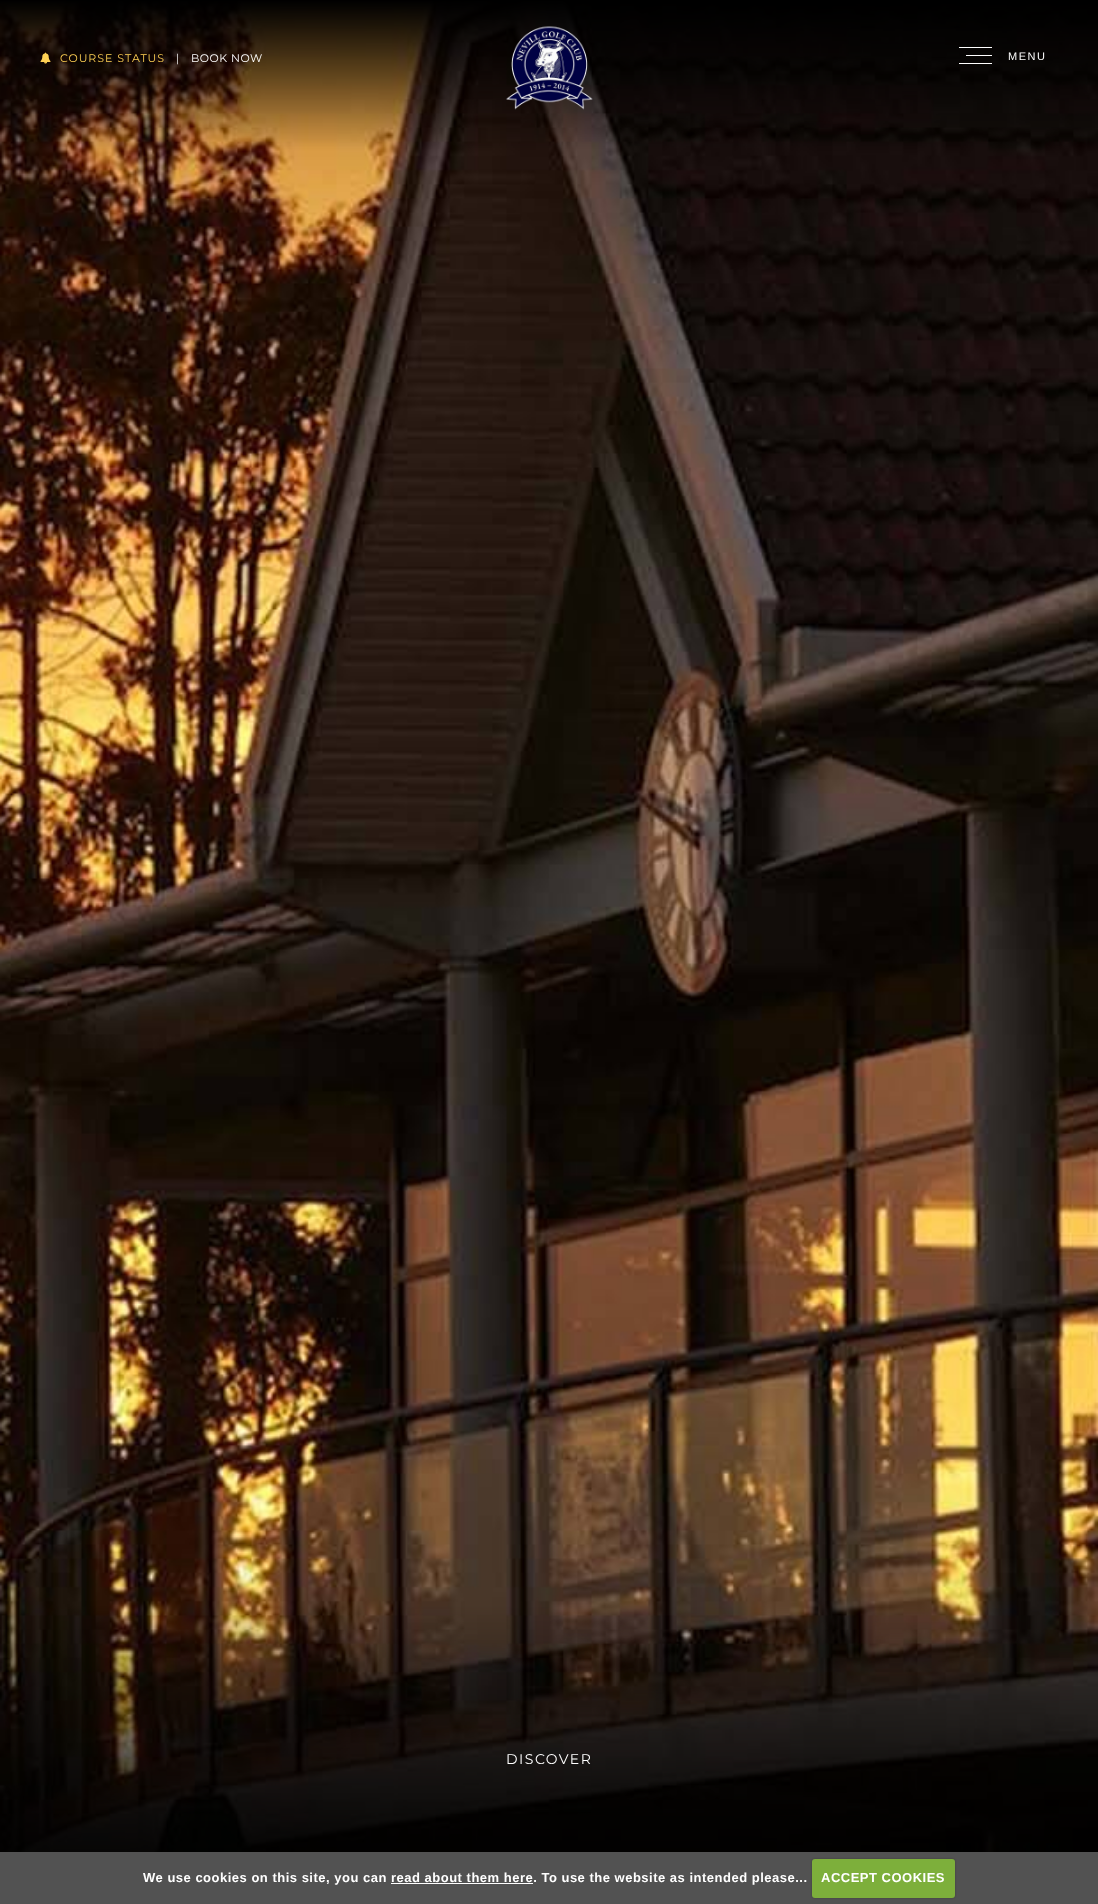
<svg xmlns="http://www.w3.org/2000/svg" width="1098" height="1904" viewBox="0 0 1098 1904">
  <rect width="100%" height="100%" fill="#fff"/>
  <image x="0" y="0" width="1098" height="1904" href="img/3.png"/>
  <image x="40" y="52" width="11" height="12" href="img/1.png"/>
  <image x="506" y="26" width="87" height="84" href="img/2.png"/>
  <path d="M959 47h33v1H959z" fill="#fff"/>
  <path d="M966 55h26v1H966z" fill="#fff"/>
  <path d="M959 63h33v1H959z" fill="#fff"/>
  <path d="M0 1852h1098v52H0z" fill="#565656f2"/>
  <rect x="812" y="1859" width="143" height="39" rx="3" fill="#00000040" filter="blur(1px)"/>
  <rect x="812" y="1859" width="143" height="39" rx="3" fill="#7daf3b"/>
  <path d="M391 1883h142v1H391z" fill="#fff"/>
  <text x="60" y="62" font-family="Montserrat" font-size="11" letter-spacing="1" fill="#ffd154">COURSE STATUS</text>
  <text x="176" y="62" font-family="Montserrat" font-size="11" letter-spacing="0.5" fill="#efefef">|</text>
  <text x="191" y="62" font-family="Montserrat" font-size="11" letter-spacing="0.5" fill="#fff">BOOK NOW</text>
  <text x="1008" y="60" font-family="Liberation Sans" font-size="11" letter-spacing="1.5" fill="#fff">MENU</text>
  <text x="506" y="1764" font-family="Montserrat" font-size="14" letter-spacing="1.5" fill="#fff">DISCOVER</text>
  <g font-family="Liberation Sans" font-size="13" font-weight="bold" letter-spacing="0.5" fill="#fff">
    <text x="143" y="1882">We use cookies on this site, you can read about them here. To use the website as intended please...</text>
    <text x="821" y="1882">ACCEPT COOKIES</text>
  </g>
</svg>
